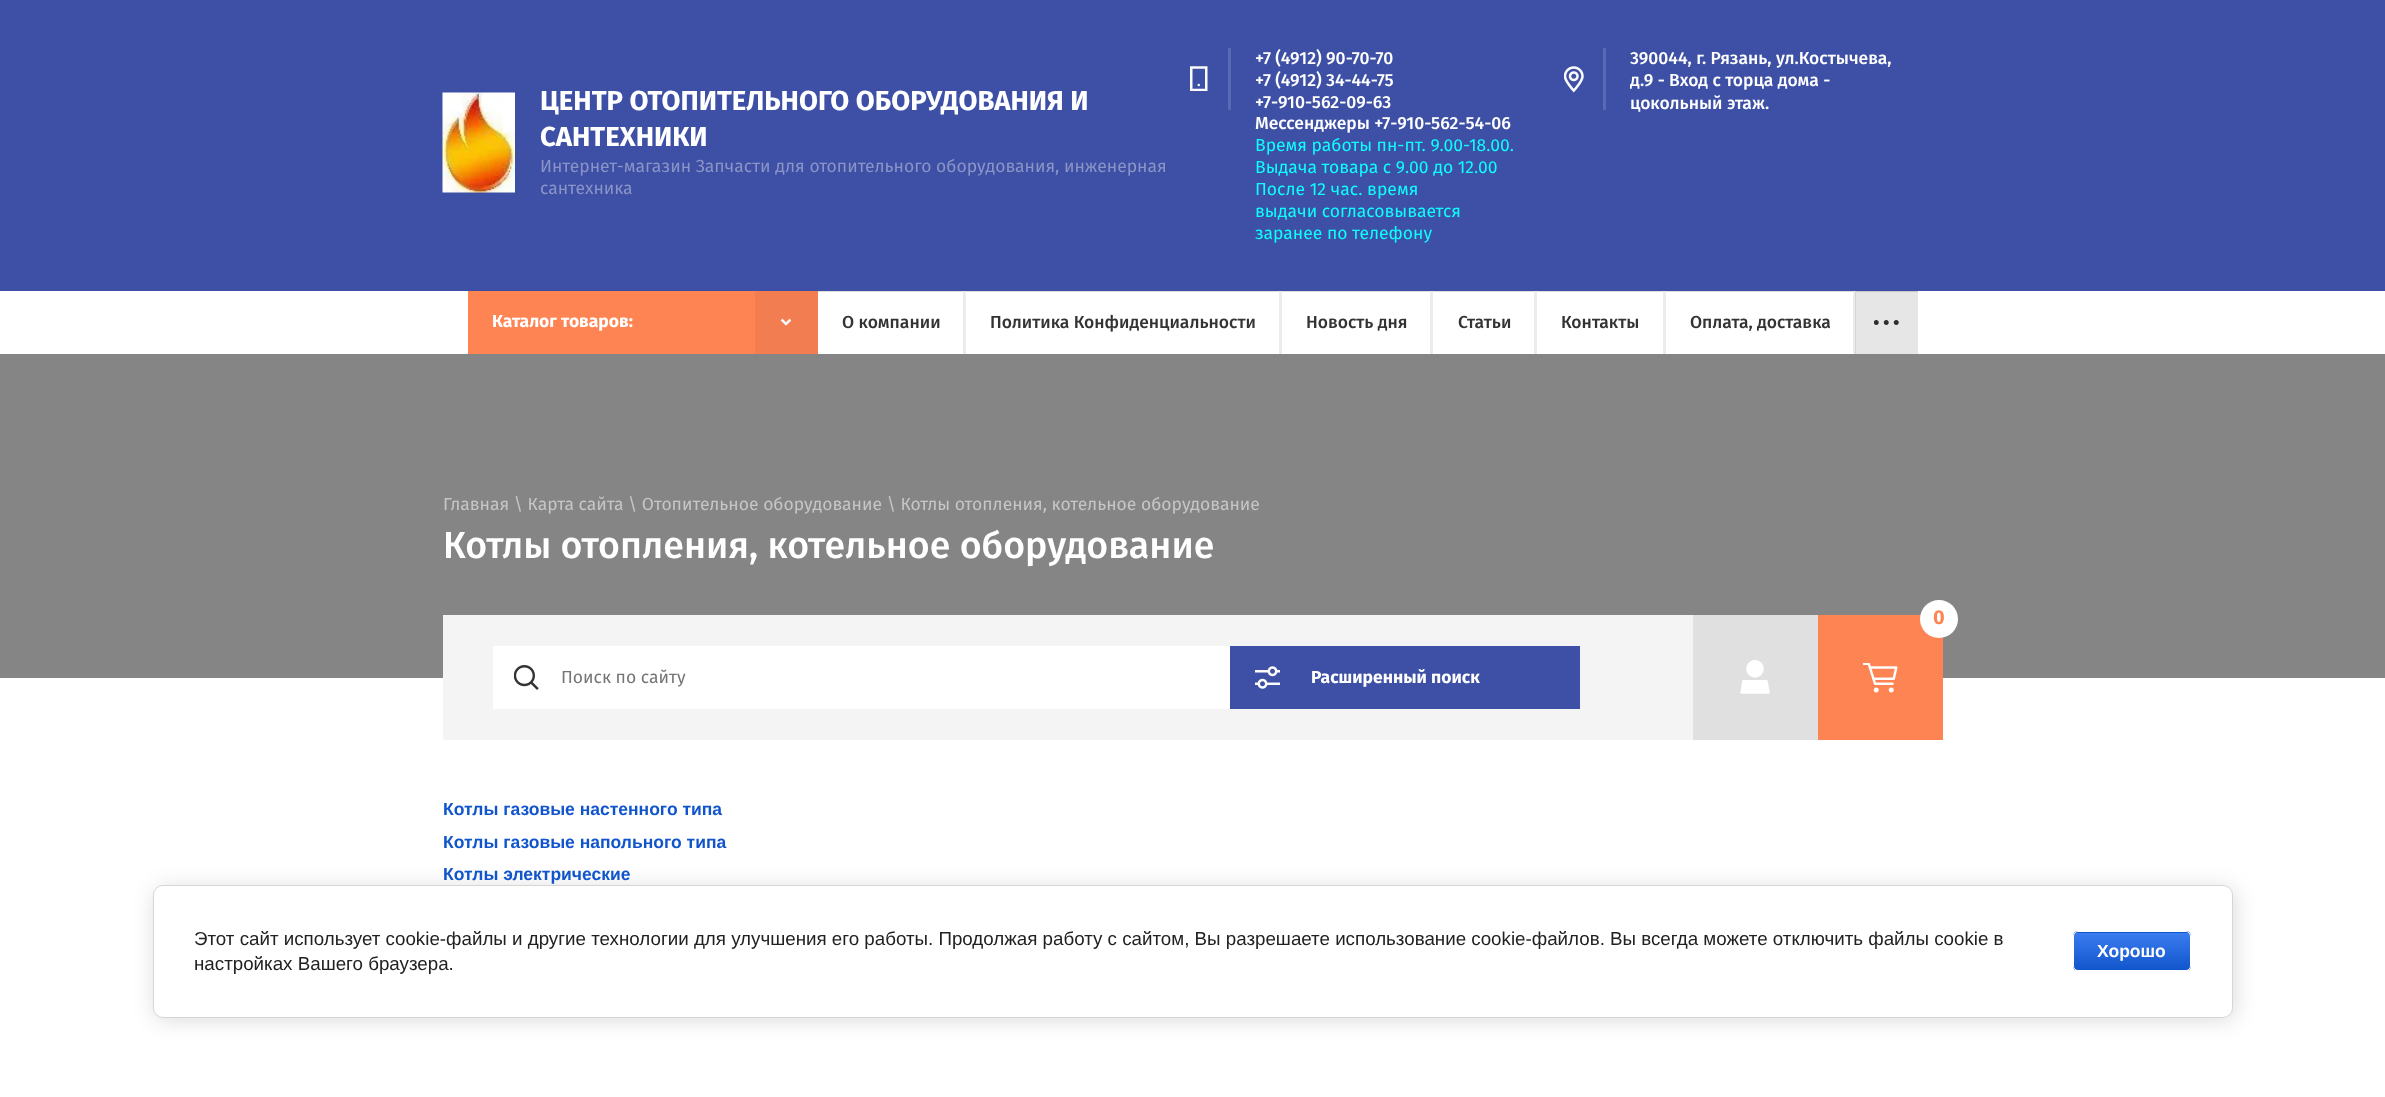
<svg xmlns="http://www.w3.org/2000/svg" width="2385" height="1097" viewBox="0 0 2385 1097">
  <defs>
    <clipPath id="clip1"><rect x="2073" y="931" width="118" height="40" rx="5"/></clipPath>
    <linearGradient id="g1" gradientUnits="userSpaceOnUse" x1="2132" y1="895" x2="2132" y2="933"><stop offset="0" stop-color="#3b7cef"/><stop offset="1" stop-color="#15c"/></linearGradient>
    <linearGradient id="g2" gradientUnits="userSpaceOnUse" x1="2132" y1="933" x2="2132" y2="970"><stop offset="0" stop-color="#3b7cef"/><stop offset="1" stop-color="#15c"/></linearGradient>
  </defs>
  <rect width="100%" height="100%" fill="#fff"/>
  <path d="M1856 292h62v62H1856z" fill="#e6e6e6"/>
  <path d="M0 354h2385v324H0z" fill="#858585"/>
  <path d="M0 0h2385v291H0z" fill="#3e50a5"/>
  <image x="442" y="92" width="73" height="101" href="img/1.png"/>
  <image x="1190" y="66" width="18" height="25" href="img/2.png"/>
  <path d="M1228 48h3v62H1228z" fill="#5a6ab2"/>
  <image x="1564" y="66" width="20" height="27" href="img/3.png"/>
  <path d="M1603 48h3v62H1603z" fill="#5a6ab2"/>
  <path d="M468 291h287v63H468z" fill="#ff8454"/>
  <path d="M755 291h63v63H755z" fill="#f27d50"/>
  <image x="780" y="318" width="12" height="8" href="img/4.png"/>
  <path d="M818 291h1035v1H818z" fill="#dcdcdc"/>
  <path d="M1855 291h63v1H1855z" fill="#c6c6c6"/>
  <path d="M963 291h3v63H963z" fill="#ececec"/>
  <path d="M1279 291h3v63H1279z" fill="#ececec"/>
  <path d="M1430 291h3v63H1430z" fill="#ececec"/>
  <path d="M1534 291h3v63H1534z" fill="#ececec"/>
  <path d="M1663 291h3v63H1663z" fill="#ececec"/>
  <path d="M1853 291h2v63H1853z" fill="#ececec"/>
  <path d="M1855 291h1v63H1855z" fill="#d4d4d4"/>
  <image x="1874" y="320" width="25" height="5" href="img/5.png"/>
  <path d="M1693 615h125v125H1693z" fill="#e0e0e0"/>
  <image x="1740" y="660" width="30" height="34" href="img/6.png"/>
  <path d="M1818 615h125v125H1818z" fill="#ff8454"/>
  <image x="1863" y="663" width="35" height="30" href="img/7.png"/>
  <circle cx="1939" cy="619" r="19" fill="#fff"/>
  <path d="M443 615h1250v125H443z" fill="#f4f4f4"/>
  <path d="M493 646h737v63H493z" fill="#fff"/>
  <image x="514" y="665" width="25" height="25" href="img/8.png"/>
  <path d="M1230 646h350v63H1230z" fill="#3e50a5"/>
  <image x="1255" y="666" width="25" height="23" href="img/9.png"/>
  <rect x="155" y="888" width="2080" height="132" rx="10" fill="#00000024" filter="blur(11px)"/>
  <rect x="153.5" y="885.5" width="2079" height="132" rx="9.5" fill="#fff" stroke="#d6d6d6"/>
  <g clip-path="url(#clip1)">
    <path d="M2073 931h118v2H2073z" fill="url(#g1)"/>
    <path d="M2073 933h118v37H2073z" fill="url(#g2)"/>
  </g>
  <rect x="2073.5" y="931.5" width="117" height="39" rx="4.5" fill="none" stroke="#fff"/>
  <g font-family="'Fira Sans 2'" font-size="27.5" font-weight="bold" fill="#fff">
    <text x="540" y="110">ЦЕНТР ОТОПИТЕЛЬНОГО ОБОРУДОВАНИЯ И</text>
    <text x="540" y="146">САНТЕХНИКИ</text>
  </g>
  <g font-family="Fira Sans" font-size="17.5" fill="#8a94c7">
    <text x="540" y="172">Интернет-магазин Запчасти для отопительного оборудования, инженерная</text>
    <text x="540" y="194">сантехника</text>
  </g>
  <g font-family="Fira Sans" font-size="17.5" font-weight="500" fill="#fff">
    <text x="1255" y="64">+7 (4912) 90-70-70</text>
    <text x="1255" y="86">+7 (4912) 34-44-75</text>
    <text x="1255" y="108">+7-910-562-09-63</text>
    <text x="1255" y="129">Мессенджеры +7-910-562-54-06</text>
  </g>
  <g font-family="Fira Sans" font-size="17.5" fill="#0efdfd">
    <text x="1255" y="151">Время работы пн-пт. 9.00-18.00.</text>
    <text x="1255" y="173">Выдача товара с 9.00 до 12.00</text>
    <text x="1255" y="195">После 12 час. время</text>
    <text x="1255" y="217">выдачи согласовывается</text>
    <text x="1255" y="239">заранее по телефону</text>
  </g>
  <g font-family="Fira Sans" font-size="17.5" font-weight="500" fill="#fff">
    <text x="1630" y="64">390044, г. Рязань, ул.Костычева,</text>
    <text x="1630" y="86">д.9 - Вход с торца дома -</text>
    <text x="1630" y="109">цокольный этаж.</text>
  </g>
  <text x="492" y="327" font-family="'Fira Sans 2'" font-size="17.5" font-weight="bold" fill="#fff">Каталог товаров:</text>
  <g font-family="Fira Sans" font-size="17.5" font-weight="500" fill="#333">
    <text x="842" y="328">О компании</text>
    <text x="990" y="328">Политика Конфиденциальности</text>
    <text x="1306" y="328">Новость дня</text>
    <text x="1458" y="328">Статьи</text>
    <text x="1561" y="328">Контакты</text>
    <text x="1690" y="328">Оплата, доставка</text>
  </g>
  <text x="443" y="510" font-family="Fira Sans" font-size="17.5" fill="#c6c6c6">Главная \ Карта сайта \ Отопительное оборудование \ Котлы отопления, котельное оборудование</text>
  <text x="443" y="558" font-family="Fira Sans" font-size="37.5" font-weight="500" fill="#fff">Котлы отопления, котельное оборудование</text>
  <text x="1933" y="624" font-family="'Fira Sans 2'" font-size="20" font-weight="bold" fill="#ff8454">0</text>
  <text x="561" y="683" font-family="'Fira Sans 2'" font-size="17.5" fill="#757575">Поиск по сайту</text>
  <text x="1311" y="683" font-family="Fira Sans" font-size="17.5" font-weight="bold" fill="#fff">Расширенный поиск</text>
  <g font-family="Liberation Sans" font-size="17.5" font-weight="bold" fill="#15c">
    <text x="443" y="815">Котлы газовые настенного типа</text>
    <text x="443" y="848">Котлы газовые напольного типа</text>
    <text x="443" y="880">Котлы электрические</text>
  </g>
  <g font-family="Liberation Sans" font-size="18.75" fill="#212121">
    <text x="194" y="945">Этот сайт использует cookie-файлы и другие технологии для улучшения его работы. Продолжая работу с сайтом, Вы разрешаете использование cookie-файлов. Вы всегда можете отключить файлы cookie в</text>
    <text x="194" y="970">настройках Вашего браузера.</text>
  </g>
  <text x="2097" y="957" font-family="Liberation Sans" font-size="17.5" font-weight="bold" fill="#fff">Хорошо</text>
</svg>
